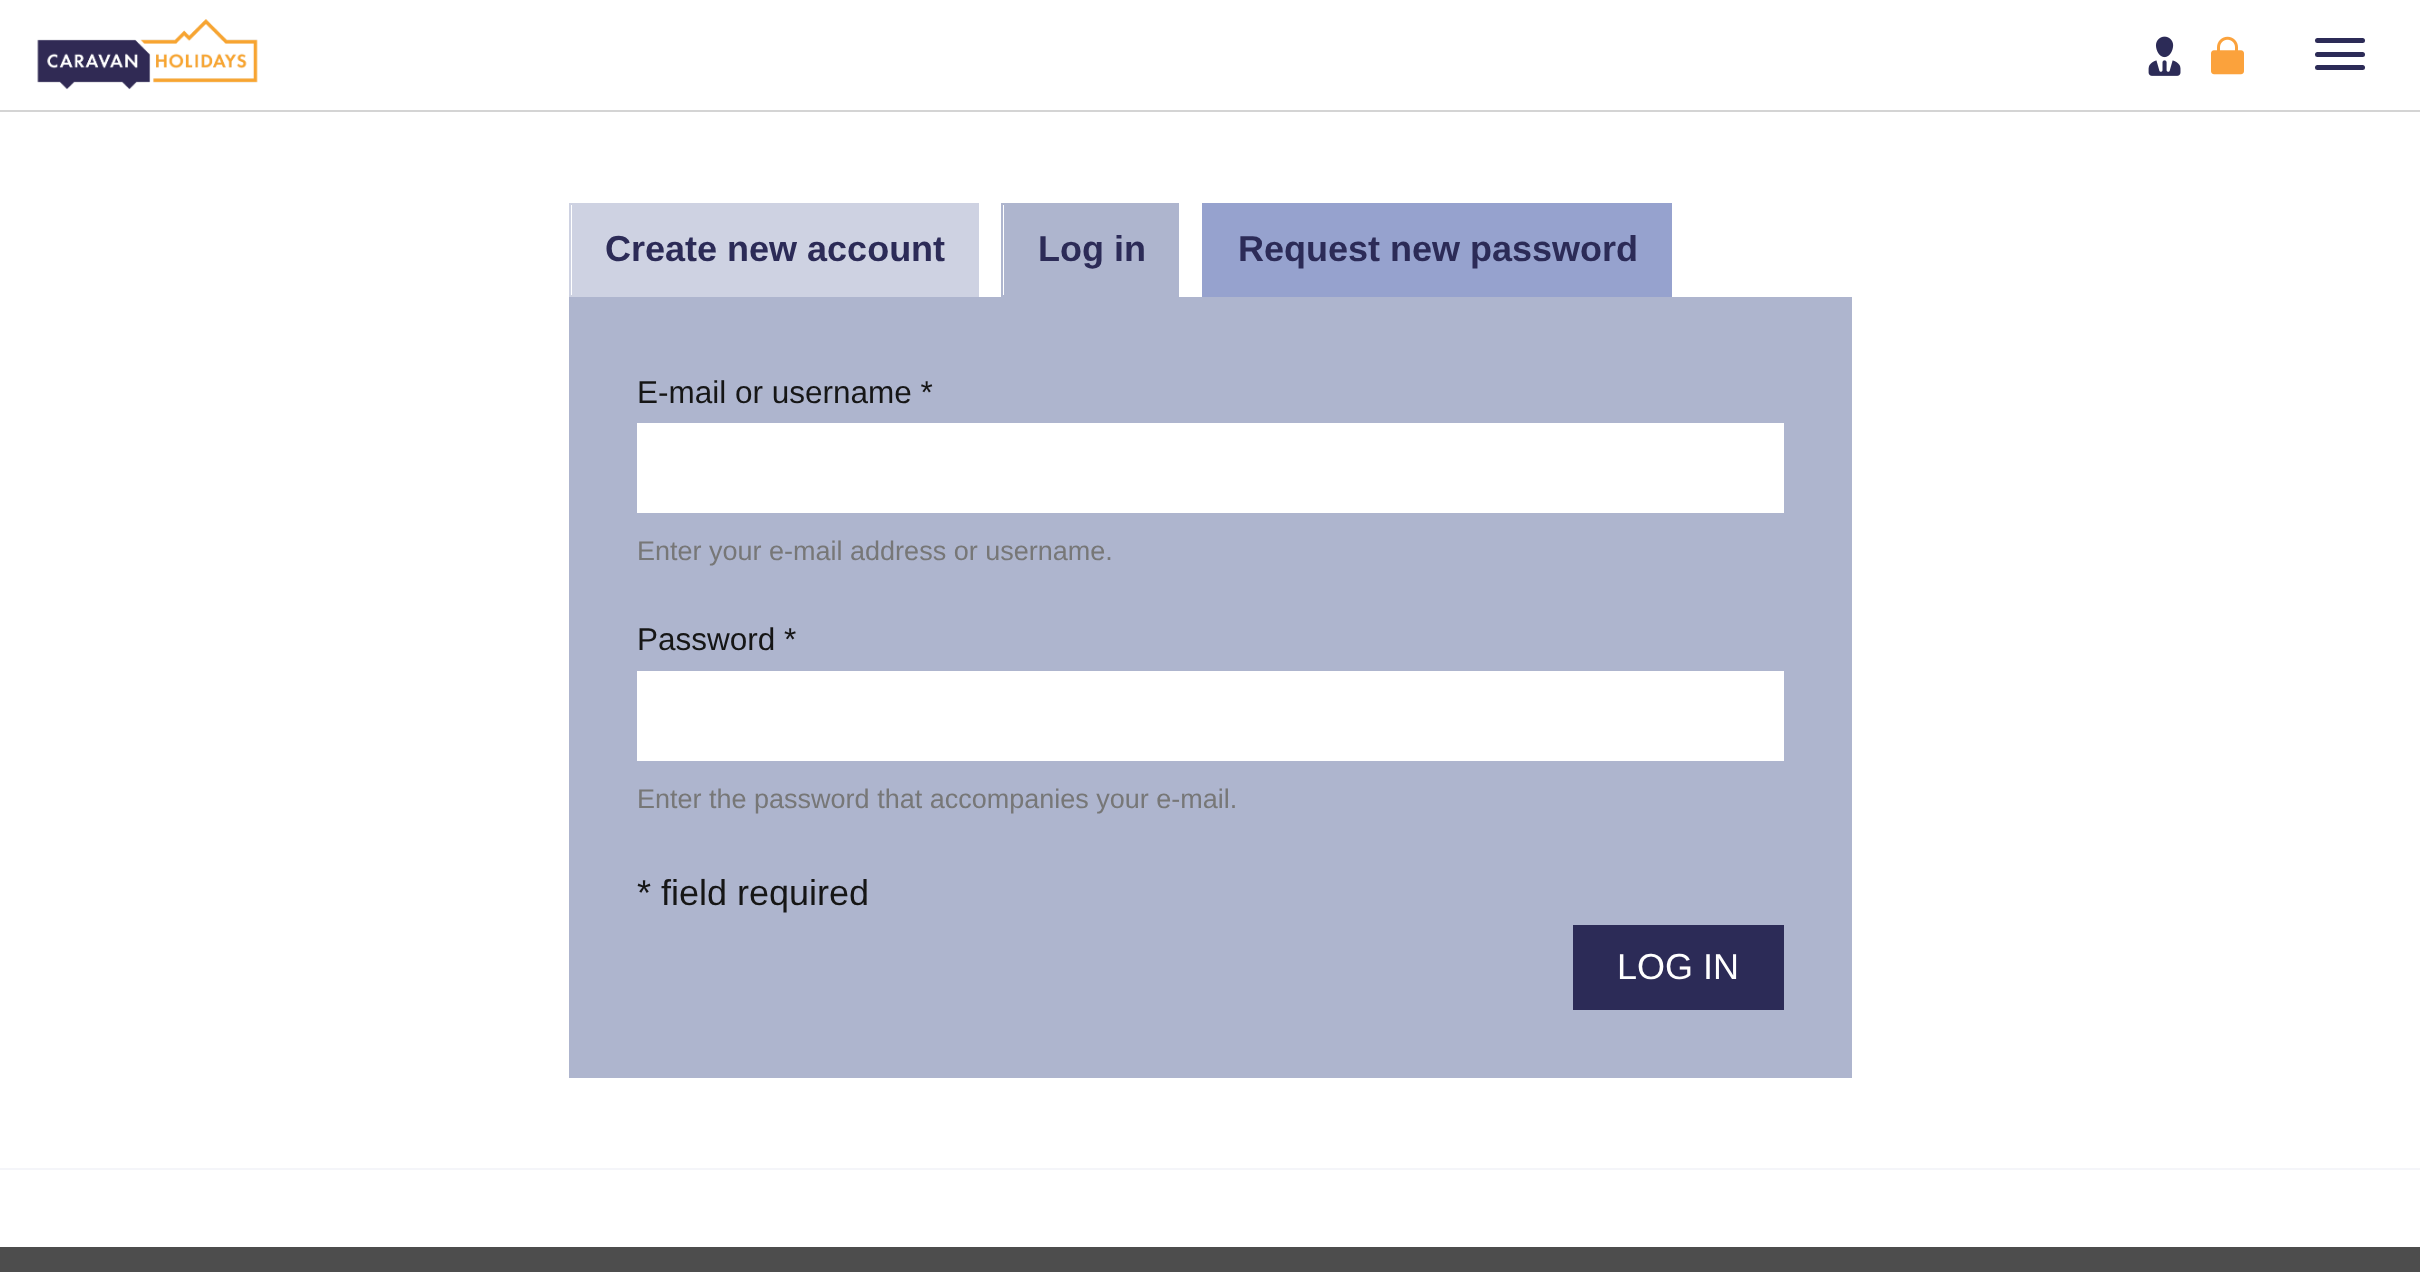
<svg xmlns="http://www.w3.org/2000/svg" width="2420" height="1272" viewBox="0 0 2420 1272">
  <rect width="100%" height="100%" fill="#fff"/>
  <path d="M0 110h2420v2H0z" fill="#d4d4d4"/>
  <image x="37" y="19" width="221" height="71" href="img/1.png"/>
  <image x="2148" y="36" width="33" height="40" href="img/2.png"/>
  <image x="2211" y="36" width="33" height="39" href="img/3.png"/>
  <rect x="2315" y="38" width="50" height="5" rx="2.5" fill="#2c2b57"/>
  <rect x="2315" y="52" width="50" height="5" rx="2.5" fill="#2c2b57"/>
  <rect x="2315" y="65" width="50" height="5" rx="2.5" fill="#2c2b57"/>
  <path d="M572 205h407v90H572z" fill="#ced2e2"/>
  <path d="M569 203h410v2H569z" fill="#ced2e2"/>
  <path d="M569 295h410v2H569z" fill="#ced2e2"/>
  <path d="M569 203h2v94H569z" fill="#ced2e2"/>
  <path d="M1004 205h175v90H1004z" fill="#aeb5ce"/>
  <path d="M1001 203h178v2H1001z" fill="#aeb5ce"/>
  <path d="M1001 295h178v2H1001z" fill="#aeb5ce"/>
  <path d="M1001 203h2v94H1001z" fill="#aeb5ce"/>
  <path d="M1204 205h468v90H1204z" fill="#96a2ce"/>
  <path d="M1202 203h470v2H1202z" fill="#96a2ce"/>
  <path d="M1202 295h470v2H1202z" fill="#96a2ce"/>
  <path d="M1202 203h2v94H1202z" fill="#96a2ce"/>
  <path d="M569 297h1283v781H569z" fill="#aeb5ce"/>
  <path d="M637 423h1147v90H637z" fill="#fff"/>
  <path d="M637 671h1147v90H637z" fill="#fff"/>
  <path d="M1573 925h211v85H1573z" fill="#2c2b57"/>
  <path d="M0 1168h2420v2H0z" fill="#f4f5f9"/>
  <path d="M0 1247h2420v25H0z" fill="#4d4d4d"/>
  <g font-family="Liberation Sans" font-size="36" font-weight="bold" fill="#2c2b57">
    <text x="605" y="261">Create new account</text>
    <text x="1038" y="261">Log in</text>
    <text x="1238" y="261">Request new password</text>
  </g>
  <text x="637" y="403" font-family="Liberation Sans" font-size="31.5" fill="#161616">E-mail or username *</text>
  <text x="637" y="560" font-family="Liberation Sans" font-size="27" fill="#777">Enter your e-mail address or username.</text>
  <text x="637" y="650" font-family="Liberation Sans" font-size="31.5" fill="#161616">Password *</text>
  <text x="637" y="808" font-family="Liberation Sans" font-size="27" fill="#777">Enter the password that accompanies your e-mail.</text>
  <text x="637" y="905" font-family="Liberation Sans" font-size="36" fill="#161616">* field required</text>
  <text x="1617" y="979" font-family="Liberation Sans" font-size="36" fill="#fff">LOG IN</text>
</svg>
